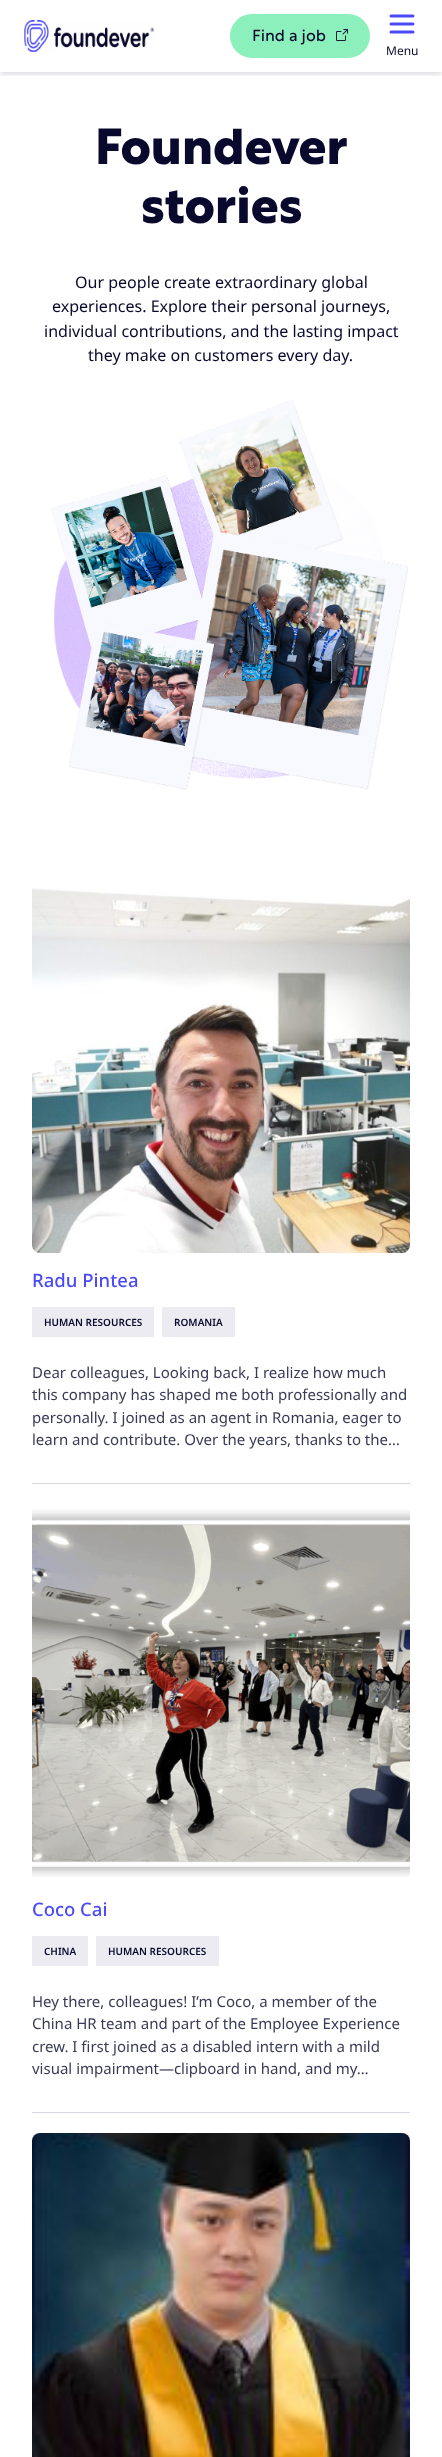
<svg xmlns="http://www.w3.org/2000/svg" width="442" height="2457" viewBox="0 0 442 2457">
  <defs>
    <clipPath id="clip1"><path d="M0 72h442v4H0z"/></clipPath>
  </defs>
  <rect width="100%" height="100%" fill="#fff"/>
  <g clip-path="url(#clip1)">
    <path d="M0 1h442v72H0z" fill="#191d3a1a" filter="blur(4px)"/>
    <path d="M0 3h442v72H0z" fill="#191d3a12" filter="blur(2px)"/>
  </g>
  <image x="24" y="20" width="130" height="32" href="img/1.png"/>
  <rect x="231" y="15" width="138" height="42" rx="21" fill="#8bf0bb" stroke="#8bf0bb" stroke-width="2"/>
  <image x="336" y="29" width="12" height="12" href="img/2.png"/>
  <path d="M391 24H413M391 16H413M391 32H413" fill="none" stroke="#4a4af9" stroke-width="3" stroke-linecap="round" stroke-linejoin="round"/>
  <image x="51" y="400" width="357" height="390" href="img/3.png"/>
  <path d="M32 1483h378v1H32z" fill="#d7d7e5"/>
  <image x="32" y="888" width="378" height="365" href="img/4.png"/>
  <path d="M32 1307h122v30H32z" fill="#ebebf1"/>
  <path d="M162 1307h73v30H162z" fill="#ebebf1"/>
  <path d="M32 2112h378v1H32z" fill="#d7d7e5"/>
  <image x="32" y="1510" width="378" height="367" href="img/5.png"/>
  <path d="M32 1936h56v30H32z" fill="#ebebf1"/>
  <path d="M96 1936h123v30H96z" fill="#ebebf1"/>
  <image x="32" y="2133" width="378" height="324" href="img/6.png"/>
  <text x="252" y="41" font-family="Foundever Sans" font-size="16.05" fill="#09092d">Find a job</text>
  <text x="386" y="55" font-family="Noto Sans" font-size="12" fill="#09092d">Menu</text>
  <g font-family="Foundever Sans" font-size="49.5" font-weight="bold" fill="#09092d">
    <text x="95" y="164">Foundever</text>
    <text x="141" y="223">stories</text>
  </g>
  <g font-family="Noto Sans" font-size="16.05" fill="#09092d">
    <text x="75" y="288">Our people create extraordinary global</text>
    <text x="52" y="312">experiences. Explore their personal journeys,</text>
    <text x="44" y="337">individual contributions, and the lasting impact</text>
    <text x="88" y="361">they make on customers every day.</text>
  </g>
  <text x="32" y="1287" font-family="Noto Sans" font-size="18.5" font-weight="500" fill="#4a4af9">Radu Pintea</text>
  <g font-family="Noto Sans" font-size="10" font-weight="600" fill="#09092d">
    <text x="44" y="1326">HUMAN RESOURCES</text>
    <text x="174" y="1326">ROMANIA</text>
  </g>
  <g font-family="Noto Sans" font-size="15" fill="#3a3a57">
    <text x="32" y="1378">Dear colleagues, Looking back, I realize how much</text>
    <text x="32" y="1400">this company has shaped me both professionally and</text>
    <text x="32" y="1423">personally. I joined as an agent in Romania, eager to</text>
    <text x="32" y="1445">learn and contribute. Over the years, thanks to the…</text>
  </g>
  <text x="32" y="1916" font-family="Noto Sans" font-size="18.5" font-weight="500" fill="#4a4af9">Coco Cai</text>
  <g font-family="Noto Sans" font-size="10" font-weight="600" fill="#09092d">
    <text x="44" y="1955">CHINA</text>
    <text x="108" y="1955">HUMAN RESOURCES</text>
  </g>
  <g font-family="Noto Sans" font-size="15" fill="#3a3a57">
    <text x="32" y="2007">Hey there, colleagues! I’m Coco, a member of the</text>
    <text x="32" y="2029">China HR team and part of the Employee Experience</text>
    <text x="32" y="2052">crew. I first joined as a disabled intern with a mild</text>
    <text x="32" y="2074">visual impairment—clipboard in hand, and my…</text>
  </g>
</svg>
